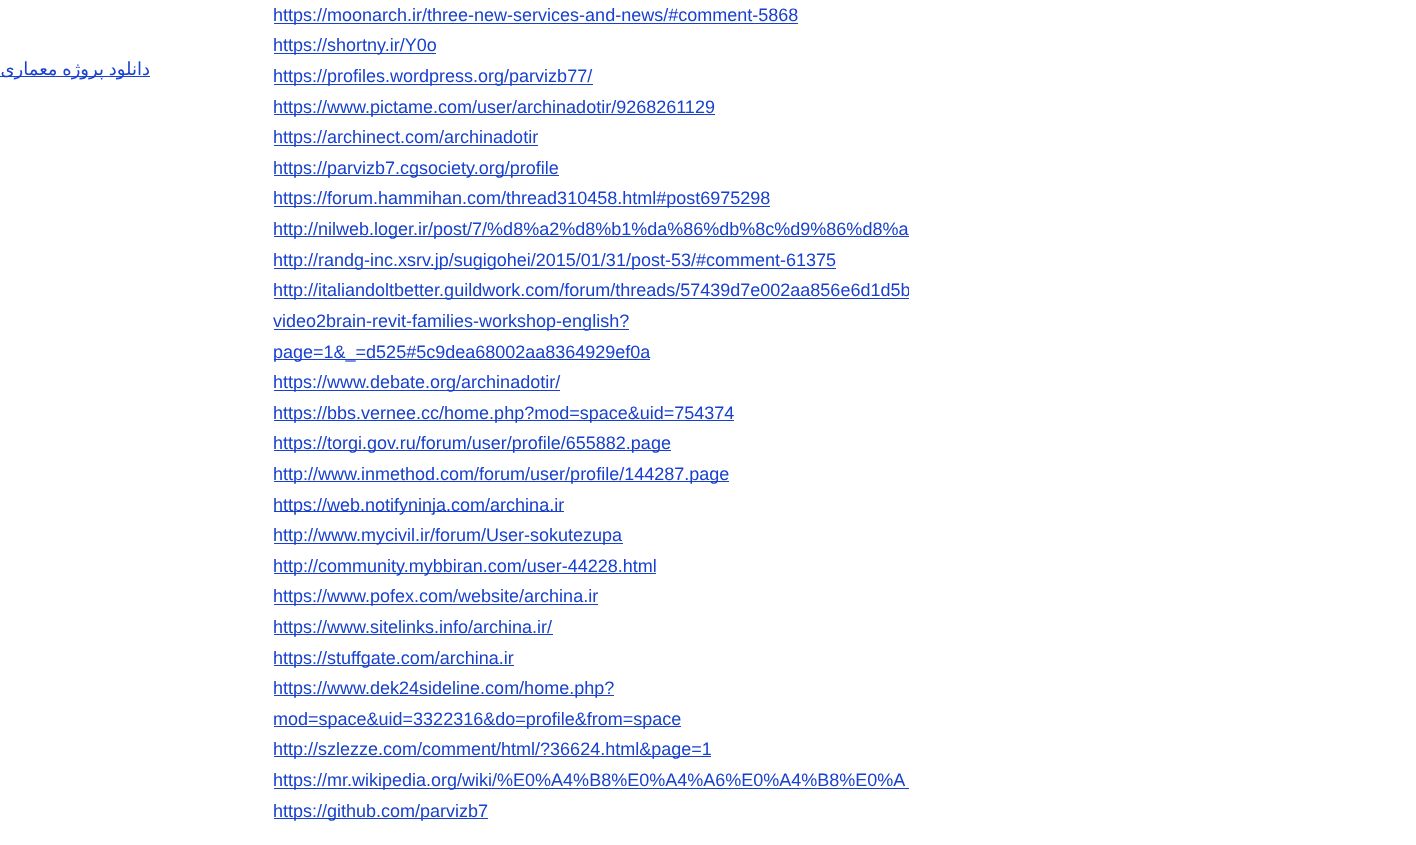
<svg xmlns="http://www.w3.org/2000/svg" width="1416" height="845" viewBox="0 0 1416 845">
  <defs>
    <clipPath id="clip1"><path d="M109 0h800v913H109z"/></clipPath>
  </defs>
  <rect width="100%" height="100%" fill="#fff"/>
  <path d="M274 23h524v1H274z" fill="#1841ce"/>
  <path d="M274 53h162v1H274z" fill="#1841ce"/>
  <path d="M0 76h150v1H0z" fill="#1841ce"/>
  <path d="M274 84h319v1H274z" fill="#1841ce"/>
  <path d="M274 114h441v1H274z" fill="#1841ce"/>
  <path d="M274 145h264v1H274z" fill="#1841ce"/>
  <path d="M274 175h285v1H274z" fill="#1841ce"/>
  <path d="M274 206h496v1H274z" fill="#1841ce"/>
  <path d="M274 236h635v1H274z" fill="#1841ce"/>
  <path d="M274 268h562v1H274z" fill="#1841ce"/>
  <path d="M274 298h635v1H274z" fill="#1841ce"/>
  <path d="M274 329h355v1H274z" fill="#1841ce"/>
  <path d="M274 359h376v1H274z" fill="#1841ce"/>
  <path d="M274 390h286v1H274z" fill="#1841ce"/>
  <path d="M274 420h460v1H274z" fill="#1841ce"/>
  <path d="M274 450h397v1H274z" fill="#1841ce"/>
  <path d="M274 481h455v1H274z" fill="#1841ce"/>
  <path d="M274 511h290v1H274z" fill="#1841ce"/>
  <path d="M274 543h349v1H274z" fill="#1841ce"/>
  <path d="M274 573h382v1H274z" fill="#1841ce"/>
  <path d="M274 604h324v1H274z" fill="#1841ce"/>
  <path d="M274 634h279v1H274z" fill="#1841ce"/>
  <path d="M274 665h240v1H274z" fill="#1841ce"/>
  <path d="M274 695h340v1H274z" fill="#1841ce"/>
  <path d="M274 726h407v1H274z" fill="#1841ce"/>
  <path d="M274 756h437v1H274z" fill="#1841ce"/>
  <path d="M274 788h635v1H274z" fill="#1841ce"/>
  <path d="M274 818h214v1H274z" fill="#1841ce"/>
  <g font-family="Liberation Sans" font-size="18" fill="#1841ce">
    <text x="273" y="21">https://moonarch.ir/three-new-services-and-news/#comment-5868</text>
    <text x="273" y="51">https://shortny.ir/Y0o</text>
  </g>
  <text x="150" y="75" word-spacing="-1" font-family="DejaVu Sans" font-size="18" direction="rtl" fill="#1841ce">دانلود پروژه معماری</text>
  <g font-family="Liberation Sans" font-size="18" fill="#1841ce">
    <text x="273" y="82">https://profiles.wordpress.org/parvizb77/</text>
    <text x="273" y="113">https://www.pictame.com/user/archinadotir/9268261129</text>
    <text x="273" y="143">https://archinect.com/archinadotir</text>
    <text x="273" y="174">https://parvizb7.cgsociety.org/profile</text>
    <text x="273" y="204">https://forum.hammihan.com/thread310458.html#post6975298</text>
    <text x="273" y="235">http://nilweb.loger.ir/post/7/%d8%a2%d8%b1%da%86%db%8c%d9%86%d8%a</text>
    <text x="273" y="266">http://randg-inc.xsrv.jp/sugigohei/2015/01/31/post-53/#comment-61375</text>
  </g>
  <g clip-path="url(#clip1)">
    <text x="273" y="296" font-family="Liberation Sans" font-size="18" fill="#1841ce">http://italiandoltbetter.guildwork.com/forum/threads/57439d7e002aa856e6d1d5b</text>
  </g>
  <g font-family="Liberation Sans" font-size="18" fill="#1841ce">
    <text x="273" y="327">video2brain-revit-families-workshop-english?</text>
    <text x="273" y="358">page=1&amp;_=d525#5c9dea68002aa8364929ef0a</text>
    <text x="273" y="388">https://www.debate.org/archinadotir/</text>
    <text x="273" y="419">https://bbs.vernee.cc/home.php?mod=space&amp;uid=754374</text>
    <text x="273" y="449">https://torgi.gov.ru/forum/user/profile/655882.page</text>
    <text x="273" y="480">http://www.inmethod.com/forum/user/profile/144287.page</text>
    <text x="273" y="511">https://web.notifyninja.com/archina.ir</text>
    <text x="273" y="541">http://www.mycivil.ir/forum/User-sokutezupa</text>
    <text x="273" y="572">http://community.mybbiran.com/user-44228.html</text>
    <text x="273" y="602">https://www.pofex.com/website/archina.ir</text>
    <text x="273" y="633">https://www.sitelinks.info/archina.ir/</text>
    <text x="273" y="664">https://stuffgate.com/archina.ir</text>
    <text x="273" y="694">https://www.dek24sideline.com/home.php?</text>
    <text x="273" y="725">mod=space&amp;uid=3322316&amp;do=profile&amp;from=space</text>
    <text x="273" y="755">http://szlezze.com/comment/html/?36624.html&amp;page=1</text>
    <text x="273" y="786">https://mr.wikipedia.org/wiki/%E0%A4%B8%E0%A4%A6%E0%A4%B8%E0%A</text>
    <text x="273" y="817">https://github.com/parvizb7</text>
  </g>
</svg>
